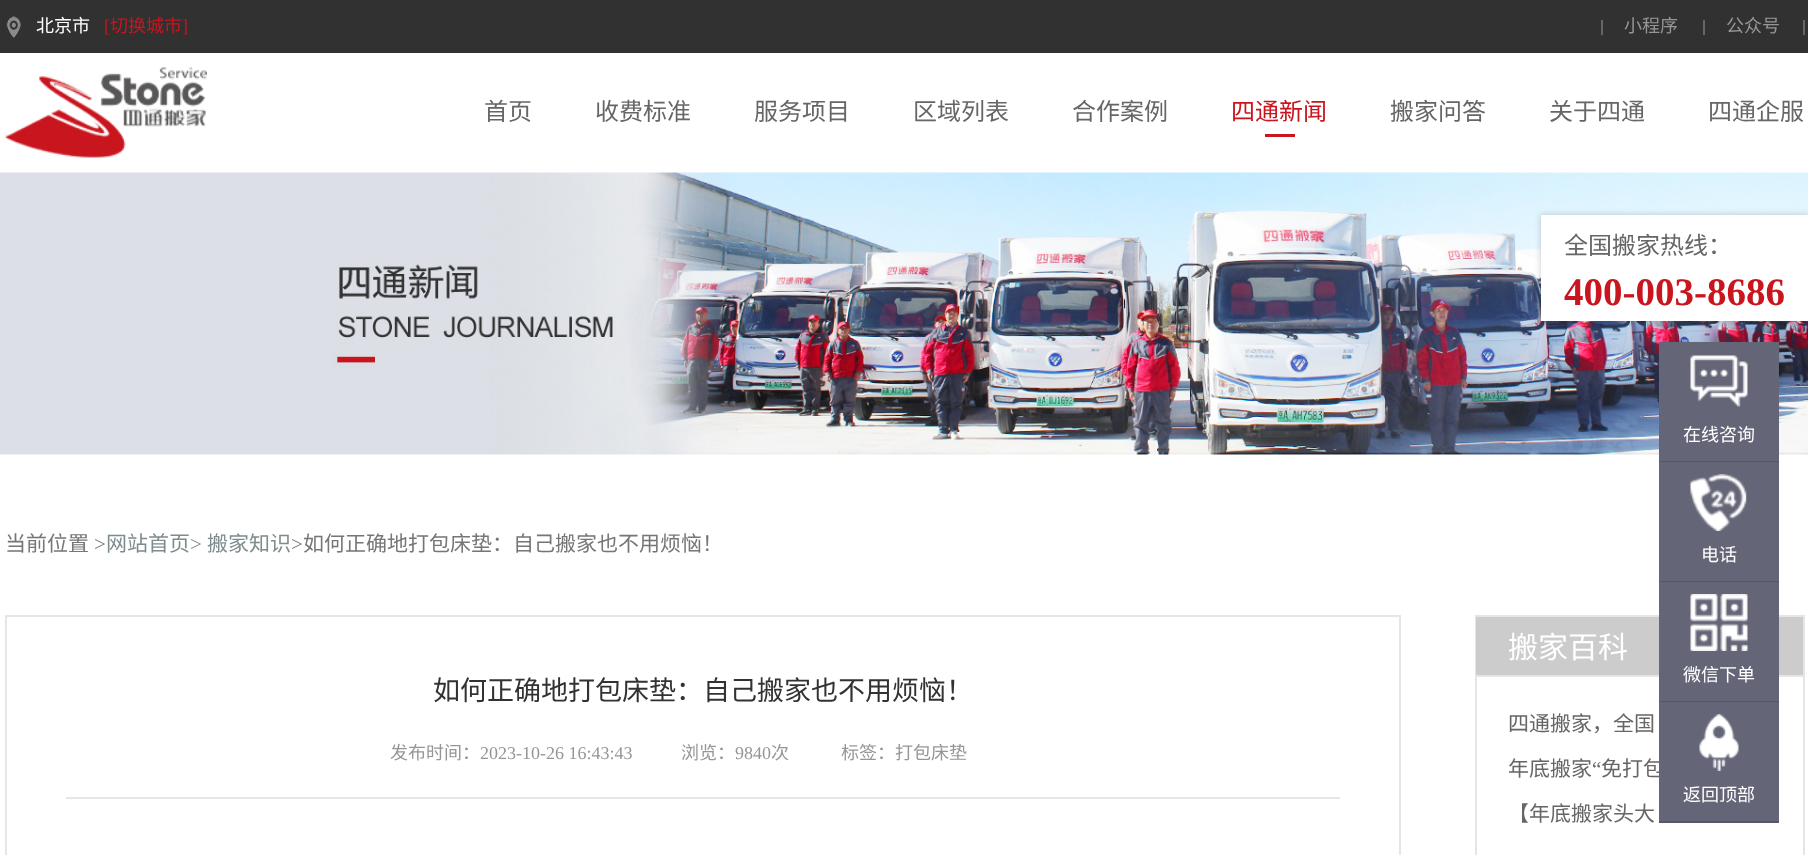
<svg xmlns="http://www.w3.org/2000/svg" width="1808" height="855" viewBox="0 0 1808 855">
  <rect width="100%" height="100%" fill="#fff"/>
  <path d="M0 0h1808v53H0z" fill="#313131"/>
  <image x="6" y="16" width="15" height="22" href="img/1.png"/>
  <path d="M1601 20h2v15H1601z" fill="#666"/>
  <path d="M1703 20h2v15H1703z" fill="#666"/>
  <path d="M1803 20h2v15H1803z" fill="#666"/>
  <image x="4" y="67" width="203" height="91" href="img/2.png"/>
  <path d="M1265 134h30v3H1265z" fill="#c9151e"/>
  <image x="0" y="172" width="1808" height="283" href="img/3.png"/>
  <path d="M1541 215h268v106H1541z" fill="#00000033" filter="blur(3px)"/>
  <path d="M1541 215h267v106H1541z" fill="#fff"/>
  <path d="M6 616h1394v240H6z" fill="none" stroke="#e6e6e6" stroke-width="2"/>
  <path d="M66 797h1274v2H66z" fill="#e6e6e6"/>
  <path d="M1476 616h328v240H1476z" fill="none" stroke="#e5e5e5" stroke-width="2"/>
  <path d="M1476 617h327v58H1476z" fill="#ccc"/>
  <path d="M1476 675h327v2H1476z" fill="#e5e5e5"/>
  <path d="M1659 342h120v119H1659z" fill="#646577"/>
  <image x="1690" y="355" width="58" height="52" href="img/4.png"/>
  <path d="M1659 461h120v1H1659z" fill="#555666"/>
  <path d="M1659 462h120v119H1659z" fill="#646577"/>
  <image x="1690" y="474" width="57" height="57" href="img/5.png"/>
  <path d="M1659 581h120v1H1659z" fill="#555666"/>
  <path d="M1659 582h120v119H1659z" fill="#646577"/>
  <image x="1690" y="594" width="58" height="57" href="img/6.png"/>
  <path d="M1659 701h120v1H1659z" fill="#555666"/>
  <path d="M1659 821h120v2H1659z" fill="#555666"/>
  <text x="36" y="32" font-family="Noto Sans CJK SC" font-size="18" fill="#fff">北京市</text>
  <text x="104" y="32" font-family="Liberation Serif" font-size="18" fill="#c9151e">[</text>
  <text x="110" y="32" font-family="Noto Sans CJK SC" font-size="18" fill="#c9151e">切换城市</text>
  <text x="182" y="32" font-family="Liberation Serif" font-size="18" fill="#c9151e">]</text>
  <g font-family="Noto Sans CJK SC" font-size="18" fill="#969696">
    <text x="1624" y="32">小程序</text>
    <text x="1726" y="32">公众号</text>
  </g>
  <g font-family="Noto Sans CJK SC" font-size="24" fill="#666">
    <text x="484" y="120">首页</text>
    <text x="595" y="120">收费标准</text>
    <text x="754" y="120">服务项目</text>
    <text x="913" y="120">区域列表</text>
    <text x="1072" y="120">合作案例</text>
  </g>
  <text x="1231" y="120" font-family="Noto Sans CJK SC" font-size="24" fill="#c9151e">四通新闻</text>
  <g font-family="Noto Sans CJK SC" font-size="24" fill="#666">
    <text x="1390" y="120">搬家问答</text>
    <text x="1549" y="120">关于四通</text>
    <text x="1708" y="120">四通企服</text>
    <text x="1564" y="254">全国搬家热线：</text>
  </g>
  <text x="1564" y="305" font-family="Liberation Serif" font-size="39" font-weight="bold" fill="#c9151e">400-003-8686</text>
  <text x="5" y="551" font-family="Noto Sans CJK SC" font-size="21" fill="#767676">当前位置</text>
  <text x="94" y="551" font-family="Liberation Serif" font-size="21" fill="#767676">&gt;</text>
  <text x="106" y="551" font-family="Noto Sans CJK SC" font-size="21" fill="#7e8c8d">网站首页</text>
  <text x="190" y="551" font-family="Liberation Serif" font-size="21" fill="#7e8c8d">&gt;</text>
  <text x="207" y="551" font-family="Noto Sans CJK SC" font-size="21" fill="#7e8c8d">搬家知识</text>
  <text x="291" y="551" font-family="Liberation Serif" font-size="21" fill="#767676">&gt;</text>
  <text x="303" y="551" font-family="Noto Sans CJK SC" font-size="21" fill="#767676">如何正确地打包床垫：自己搬家也不用烦恼！</text>
  <text x="433" y="700" font-family="Noto Sans CJK SC" font-size="27" fill="#323232">如何正确地打包床垫：自己搬家也不用烦恼！</text>
  <text x="390" y="759" font-family="Noto Sans CJK SC" font-size="18" fill="#969696">发布时间：</text>
  <text x="480" y="759" font-family="Liberation Serif" font-size="18" fill="#969696">2023-10-26 16:43:43</text>
  <text x="681" y="759" font-family="Noto Sans CJK SC" font-size="18" fill="#969696">浏览：</text>
  <text x="735" y="759" font-family="Liberation Serif" font-size="18" fill="#969696">9840</text>
  <g font-family="Noto Sans CJK SC" font-size="18" fill="#969696">
    <text x="771" y="759">次</text>
    <text x="841" y="759">标签：打包床垫</text>
  </g>
  <text x="1508" y="658" font-family="Noto Sans CJK SC" font-size="30" fill="#fff">搬家百科</text>
  <g font-family="Noto Sans CJK SC" font-size="21" fill="#666">
    <text x="1508" y="731">四通搬家，全国</text>
    <text x="1508" y="776">年底搬家</text>
  </g>
  <text x="1592" y="776" font-family="Liberation Serif" font-size="21" fill="#666">“</text>
  <g font-family="Noto Sans CJK SC" font-size="21" fill="#666">
    <text x="1601" y="776">免打包</text>
    <text x="1508" y="821">【年底搬家头大</text>
  </g>
  <g font-family="Noto Sans CJK SC" font-size="18" fill="#fff">
    <text x="1683" y="441">在线咨询</text>
    <text x="1701" y="561">电话</text>
    <text x="1683" y="681">微信下单</text>
  </g>
  <path d="M1659 702h120v119H1659z" fill="#646577"/>
  <image x="1699" y="714" width="40" height="57" href="img/7.png"/>
  <text x="1683" y="801" font-family="Noto Sans CJK SC" font-size="18" fill="#fff">返回顶部</text>
</svg>
